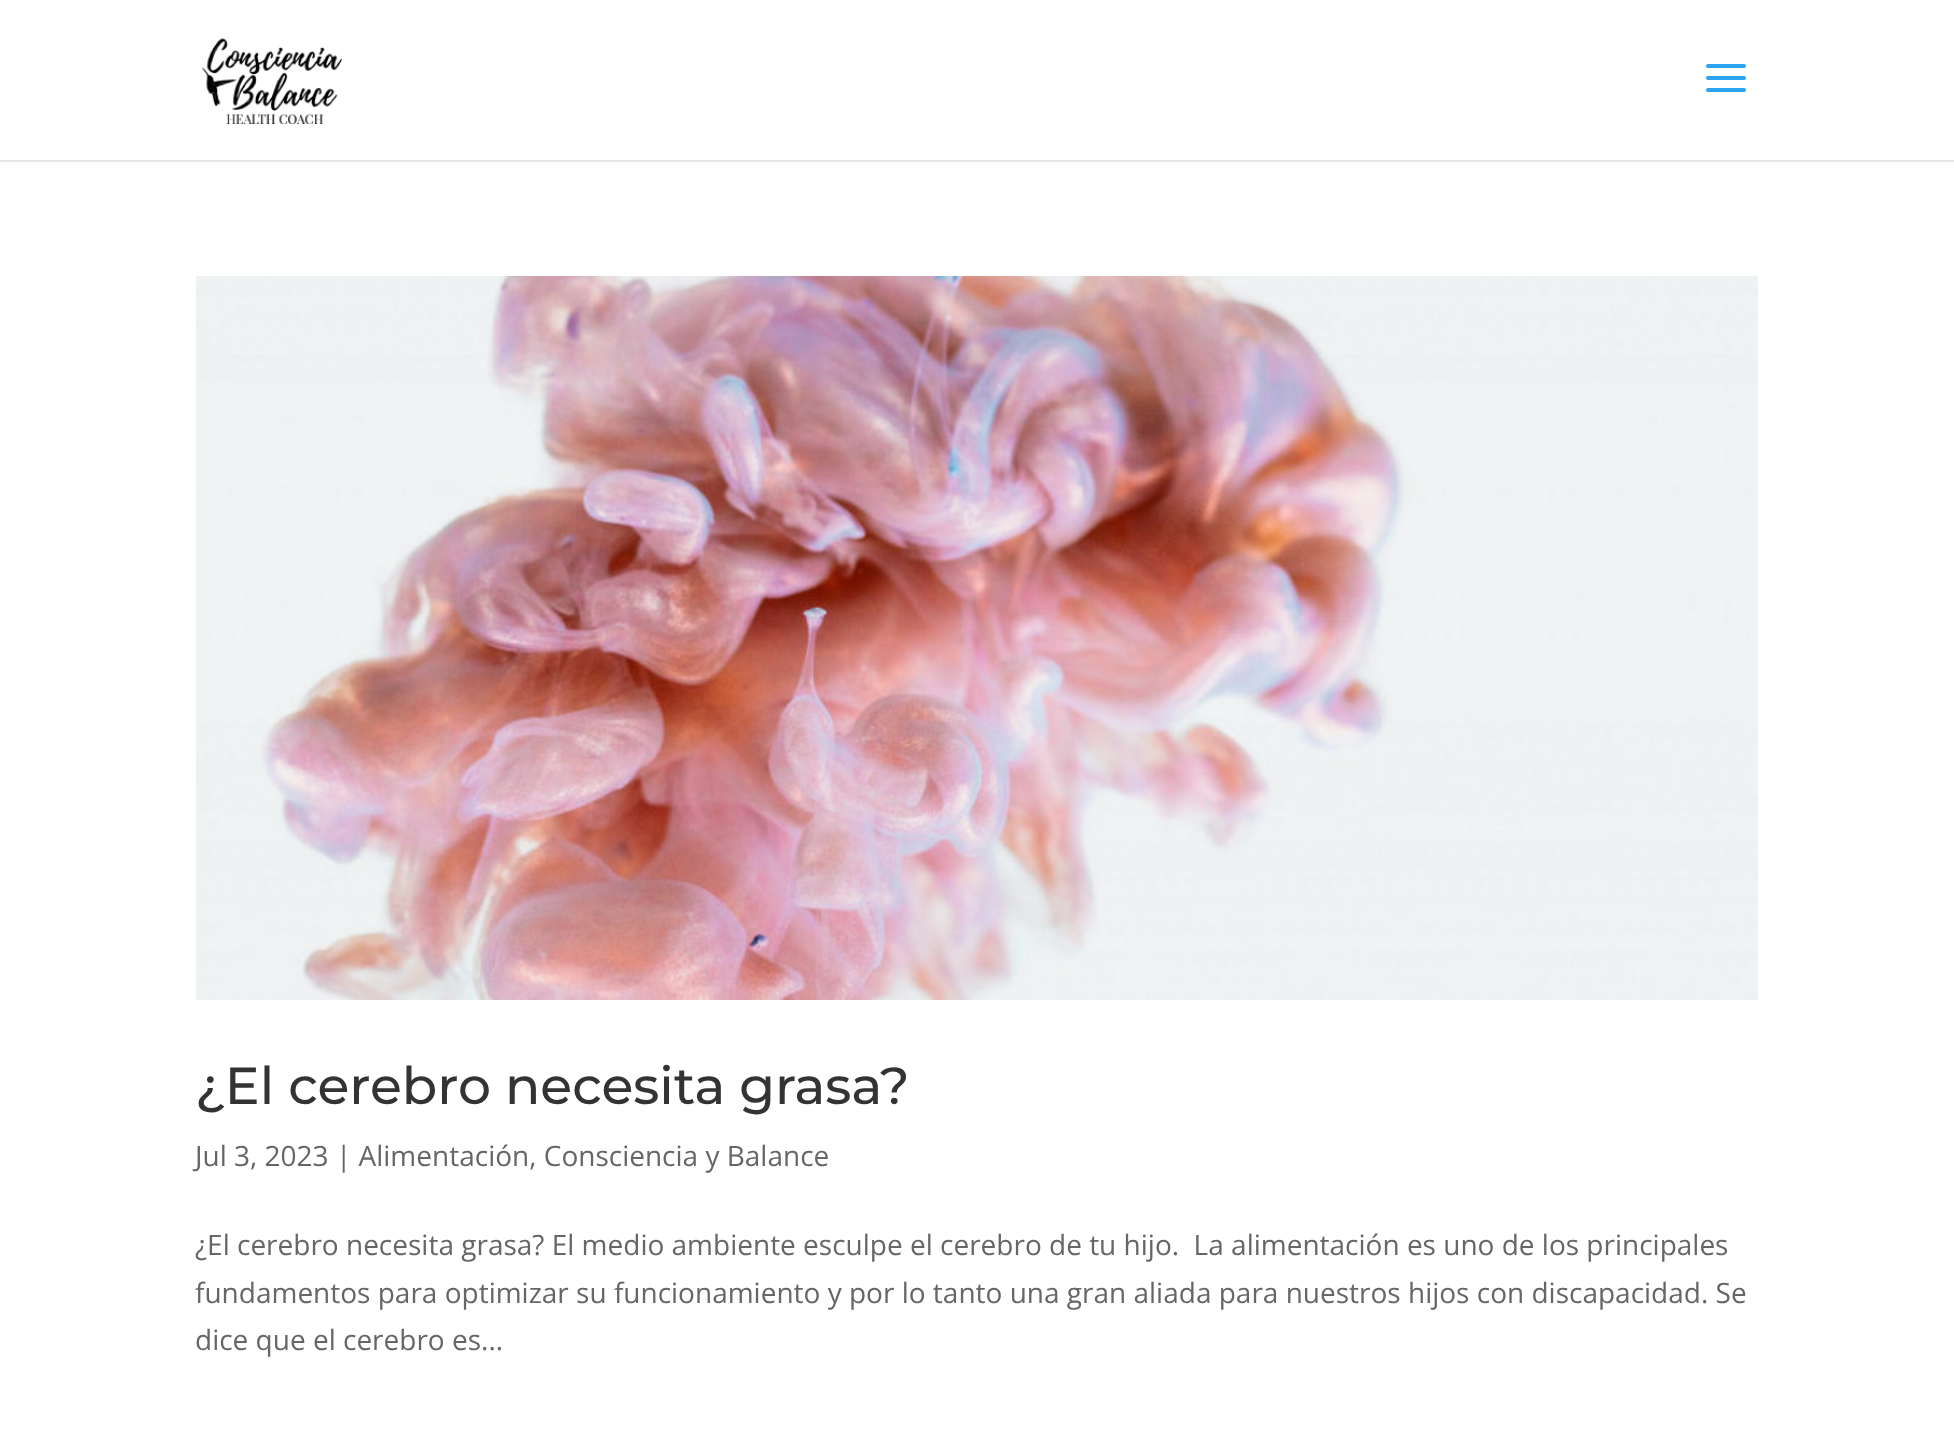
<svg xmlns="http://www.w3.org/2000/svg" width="1954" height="1434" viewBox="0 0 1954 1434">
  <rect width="100%" height="100%" fill="#fff"/>
  <path d="M0 160h1954v2H0z" fill="#e6e6e6"/>
  <image x="202" y="38" width="140" height="86" href="img/1.png"/>
  <image x="1706" y="64" width="40" height="28" href="img/2.png"/>
  <image x="196" y="276" width="1562" height="724" href="img/3.png"/>
  <text x="195" y="1104" font-family="Montserrat" font-size="52" font-weight="500" fill="#333">¿El cerebro necesita grasa?</text>
  <g font-family="Open Sans" font-size="28" fill="#666">
    <text x="195" y="1166">Jul 3, 2023 | Alimentación, Consciencia y Balance</text>
    <text x="195" y="1255" xml:space="preserve">¿El cerebro necesita grasa? El medio ambiente esculpe el cerebro de tu hijo.  La alimentación es uno de los principales</text>
    <text x="195" y="1303">fundamentos para optimizar su funcionamiento y por lo tanto una gran aliada para nuestros hijos con discapacidad. Se</text>
    <text x="195" y="1350">dice que el cerebro es...</text>
  </g>
</svg>
